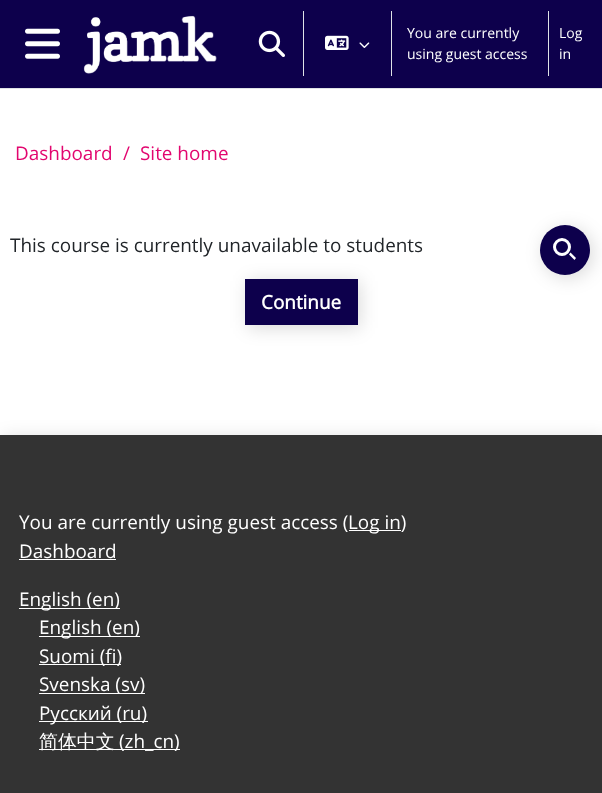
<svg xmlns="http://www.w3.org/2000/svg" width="602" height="793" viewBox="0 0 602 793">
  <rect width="100%" height="100%" fill="#fff"/>
  <path d="M0 0h602v88H0z" fill="#0d004c"/>
  <path d="M0 88h602v1H0z" fill="#dee2e6"/>
  <image x="25" y="28" width="35" height="31" href="img/1.png"/>
  <image x="83" y="15" width="134" height="59" href="img/2.png"/>
  <image x="258" y="30" width="27" height="27" href="img/3.png"/>
  <path d="M303 11h1v65H303z" fill="#dee2e6"/>
  <image x="325" y="35" width="24" height="15" href="img/4.png"/>
  <image x="359" y="42" width="11" height="6" href="img/5.png"/>
  <path d="M391 11h1v65H391z" fill="#dee2e6"/>
  <path d="M548 11h1v65H548z" fill="#dee2e6"/>
  <rect x="543" y="228" width="50" height="50" rx="25" fill="#00000026" filter="blur(9px)"/>
  <circle cx="565" cy="250" r="25" fill="#0d004c"/>
  <path d="M570.5 252.5L576 258L574.5 260L569 254.5Z" fill="#fff"/>
  <circle cx="562" cy="247" r="7.5" fill="none" stroke="#fff" stroke-width="3"/>
  <path d="M248 281h112v47H248z" fill="#00000026" filter="blur(9px)"/>
  <path d="M245 279h113v46H245z" fill="#0d004c"/>
  <path d="M3 438h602v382H3z" fill="#00000026" filter="blur(9px)"/>
  <path d="M0 435h602v358H0z" fill="#333"/>
  <path d="M349 530h52v1H349z" fill="#fff"/>
  <path d="M19 559h97v1H19z" fill="#fff"/>
  <path d="M19 608h101v1H19z" fill="#fff"/>
  <path d="M39 636h101v1H39z" fill="#fff"/>
  <path d="M39 664h82v1H39z" fill="#fff"/>
  <path d="M39 693h106v1H39z" fill="#fff"/>
  <path d="M39 721h109v1H39z" fill="#fff"/>
  <path d="M39 749h141v1H39z" fill="#fff"/>
  <g font-family="Open Sans" font-size="14" fill="#fff">
    <text x="407" y="38">You are currently</text>
    <text x="559" y="38">Log</text>
    <text x="559" y="59">in</text>
    <text x="407" y="59">using guest access</text>
  </g>
  <g font-family="Open Sans" font-size="18.9" fill="#e2066f">
    <text x="15" y="160">Dashboard</text>
    <text x="123" y="160">/</text>
    <text x="140" y="160">Site home</text>
  </g>
  <text x="10" y="252" font-family="Open Sans" font-size="18.9" fill="#212529">This course is currently unavailable to students</text>
  <text x="261" y="309" font-family="Open Sans" font-size="18.9" font-weight="bold" fill="#fff">Continue</text>
  <g font-family="Open Sans" font-size="18.9" fill="#fff">
    <text x="19" y="529">You are currently using guest access (</text>
    <text x="348" y="529">Log in)</text>
    <text x="19" y="558">Dashboard</text>
    <text x="19" y="606">English (en)</text>
    <text x="39" y="634">English (en)</text>
    <text x="39" y="663">Suomi (fi)</text>
    <text x="39" y="691">Svenska (sv)</text>
    <text x="39" y="720">Русский (ru)</text>
  </g>
  <text x="39" y="748" font-family="WenQuanYi Zen Hei" font-size="18.9" font-weight="500" fill="#fff">简体中文</text>
  <text x="119" y="748" font-family="Open Sans" font-size="18.9" fill="#fff">(zh_cn)</text>
</svg>
